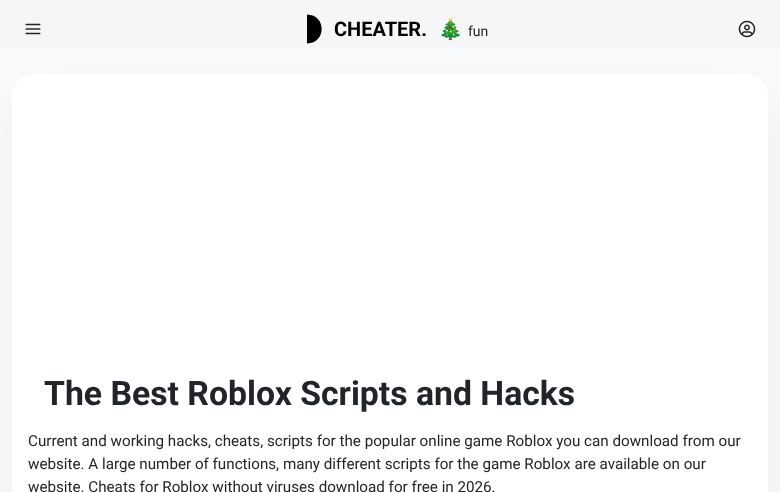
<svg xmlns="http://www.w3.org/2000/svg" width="780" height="492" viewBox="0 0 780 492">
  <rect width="100%" height="100%" fill="#f9fafc"/>
  <rect x="12" y="101" width="756" height="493" rx="22" fill="#0000000d" filter="blur(26.5px)"/>
  <path d="M0 0h780v48H0z" fill="#f5f6f7"/>
  <image x="25" y="23" width="16" height="12" href="img/1.png"/>
  <path d="M307 29V43.5C326.5 43 326.5 15 307 14.5Z" fill="#000"/>
  <image x="738" y="20" width="18" height="18" href="img/2.png"/>
  <rect x="12" y="74" width="756" height="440" rx="22" fill="#fff"/>
  <text x="334" y="36" font-family="Roboto" font-size="20" font-weight="bold" fill="#000">CHEATER.</text>
  <text x="438" y="36" font-family="Noto Color Emoji" font-size="20" font-weight="bold" fill="#000">🎄</text>
  <text x="468" y="36" font-family="Roboto" font-size="14" fill="#212529">fun</text>
  <text x="44" y="405" font-family="Roboto" font-size="33.75" font-weight="bold" fill="#212529">The Best Roblox Scripts and Hacks</text>
  <g font-family="Roboto" font-size="15.2" fill="#212529">
    <text x="28" y="446">Current and working hacks, cheats, scripts for the popular online game Roblox you can download from our</text>
    <text x="28" y="469">website. A large number of functions, many different scripts for the game Roblox are available on our</text>
    <text x="28" y="492">website. Cheats for Roblox without viruses download for free in 2026.</text>
  </g>
</svg>
